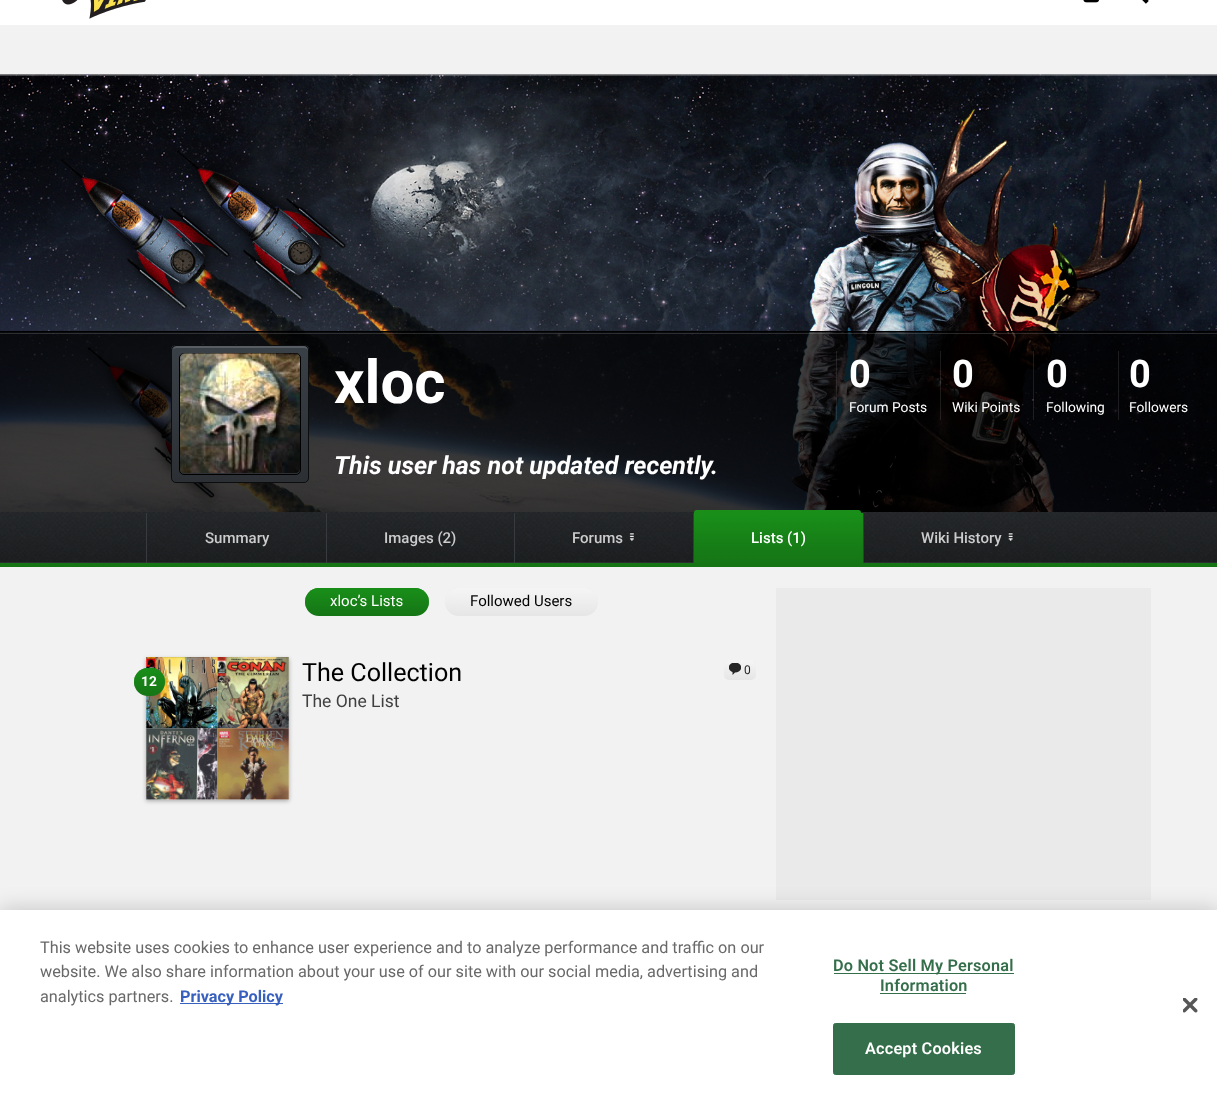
<svg xmlns="http://www.w3.org/2000/svg" width="1217" height="1100" viewBox="0 0 1217 1100">
  <defs>
    <clipPath id="clip1"><rect x="171" y="345" width="138" height="138" rx="5"/></clipPath>
    <linearGradient id="g1" gradientUnits="userSpaceOnUse" x1="240" y1="346" x2="240" y2="481"><stop offset="0" stop-color="#394046"/><stop offset="1" stop-color="#394046" stop-opacity="0"/></linearGradient>
    <linearGradient id="g2" gradientUnits="userSpaceOnUse" x1="778" y1="513" x2="778" y2="563"><stop offset="0" stop-color="#198f19"/><stop offset="1" stop-color="#157515"/></linearGradient>
    <linearGradient id="g3" gradientUnits="userSpaceOnUse" x1="367" y1="588" x2="367" y2="616"><stop offset="0" stop-color="#198f19"/><stop offset="1" stop-color="#198f19" stop-opacity="0"/></linearGradient>
    <linearGradient id="g4" gradientUnits="userSpaceOnUse" x1="521" y1="588" x2="521" y2="616"><stop offset="0" stop-color="#f5f5f5"/><stop offset="1" stop-color="#f5f5f5" stop-opacity="0"/></linearGradient>
    <clipPath id="clip2"><path d="M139 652H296V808H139ZM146 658H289V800H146Z" clip-rule="evenodd"/></clipPath>
    <linearGradient id="g5" gradientUnits="userSpaceOnUse" x1="149" y1="668" x2="149" y2="696"><stop offset="0" stop-color="#198f19"/><stop offset="1" stop-color="#198f19" stop-opacity="0"/></linearGradient>
    <linearGradient id="g6" gradientUnits="userSpaceOnUse" x1="740" y1="660" x2="740" y2="680"><stop offset="0" stop-color="#f5f5f5"/><stop offset="1" stop-color="#f5f5f5" stop-opacity="0"/></linearGradient>
  </defs>
  <rect width="100%" height="100%" fill="#f2f2f2"/>
  <path d="M0 0h1217v25H0z" fill="#fff"/>
  <image x="62" y="0" width="84" height="19" href="img/1.png"/>
  <image x="1083" y="0" width="16" height="3" href="img/2.png"/>
  <image x="1142" y="0" width="7" height="4" href="img/3.png"/>
  <image x="0" y="74" width="1217" height="438" href="img/4.png"/>
  <path d="M0 75h1217v1H0z" fill="#ffffff40"/>
  <path d="M0 332h1217v180H0z" fill="#000000bf"/>
  <path d="M0 333h1217v1H0z" fill="#ffffff26"/>
  <path d="M0 331h1217v1H0z" fill="#000"/>
  <rect x="171" y="345" width="138" height="138" rx="5" fill="#2c3035"/>
  <g clip-path="url(#clip1)">
    <path d="M171 346h138v132H171z" fill="url(#g1)"/>
  </g>
  <path d="M176 348H304C306 348 308 349 308 351V350C308 348 306 346 304 346H177C175 346 174 347 173 349Z" fill="#575d62"/>
  <rect x="171.5" y="345.5" width="137" height="137" rx="4.5" fill="none" stroke="#0b0d0e"/>
  <rect x="179.5" y="353.5" width="121" height="121" rx="4.5" fill="none" stroke="#000"/>
  <image x="180" y="353" width="120" height="120" href="img/5.png"/>
  <path d="M836 351h1v44H836z" fill="#ffffff1a"/>
  <path d="M940 351h1v44H940z" fill="#ffffff1a"/>
  <path d="M1033 351h1v44H1033z" fill="#ffffff1a"/>
  <path d="M1118 351h1v44H1118z" fill="#1c1d1f"/>
  <path d="M836 395h1v25H836z" fill="#ffffff1a"/>
  <path d="M940 395h1v25H940z" fill="#ffffff1a"/>
  <path d="M1033 395h1v25H1033z" fill="#ffffff1a"/>
  <path d="M1118 395h1v25H1118z" fill="#ffffff1a"/>
  <path d="M0 562h1217v1H0z" fill="#2b2e31"/>
  <image x="0" y="512" width="1217" height="50" href="img/6.png"/>
  <path d="M146 513h1v50H146z" fill="#373b3f"/>
  <path d="M326 513h1v50H326z" fill="#373b3f"/>
  <path d="M514 513h1v50H514z" fill="#373b3f"/>
  <image x="629" y="532" width="5" height="9" href="img/7.png"/>
  <path d="M694 513h169v50H694z" fill="url(#g2)"/>
  <path d="M693 513h1v50H693z" fill="#373b3f"/>
  <path d="M696.5 510H858.5C860 510 861 511 861 512.5V513H694V512.5C694 511 695 510 696.5 510Z" fill="#198f19"/>
  <path d="M863 513h1v50H863z" fill="#373b3f"/>
  <image x="1008" y="532" width="5" height="9" href="img/8.png"/>
  <path d="M0 563h1217v4H0z" fill="#157515"/>
  <rect x="305" y="588" width="124" height="28" rx="14" fill="#157515"/>
  <rect x="305" y="588" width="124" height="28" rx="14" fill="url(#g3)"/>
  <rect x="445" y="588" width="153" height="28" rx="14" fill="#e6e6e6"/>
  <rect x="445" y="588" width="153" height="28" rx="14" fill="url(#g4)"/>
  <path d="M146 658h143v142H146z" fill="#e5e5e5"/>
  <image x="146" y="657" width="72" height="72" href="img/9.png"/>
  <image x="217" y="657" width="72" height="72" href="img/10.png"/>
  <image x="146" y="728" width="72" height="72" href="img/11.png"/>
  <image x="217" y="728" width="72" height="72" href="img/12.png"/>
  <g clip-path="url(#clip2)">
    <path d="M146 659h143v142H146z" fill="#0000004d" filter="blur(2px)"/>
  </g>
  <rect x="134" y="668" width="31" height="28" rx="14" fill="#157515"/>
  <rect x="134" y="668" width="31" height="28" rx="14" fill="url(#g5)"/>
  <rect x="724" y="660" width="32" height="20" rx="5" fill="#e6e6e6"/>
  <rect x="724" y="660" width="32" height="20" rx="5" fill="url(#g6)"/>
  <image x="729" y="663" width="12" height="12" href="img/13.png"/>
  <path d="M776 588h375v312H776z" fill="#eaeaea"/>
  <path d="M0 910h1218v190H0z" fill="#00000033" filter="blur(11px)"/>
  <path d="M0 910h1217v190H0z" fill="#fff"/>
  <path d="M180 1003h103v1H180z" fill="#3860be"/>
  <path d="M834 973h180v1H834z" fill="#346e4a"/>
  <path d="M880 993h86v1H880z" fill="#346e4a"/>
  <rect x="833.5" y="1023.5" width="181" height="51" rx="2" fill="#346e4a" stroke="#346e4a"/>
  <image x="1183" y="998" width="15" height="15" href="img/14.png"/>
  <text x="334" y="403" font-family="Roboto" font-size="60" font-weight="bold" fill="#fff">xloc</text>
  <text x="334" y="474" font-family="Roboto" font-size="25.1" font-weight="bold" font-style="italic" fill="#fff">This user has not updated recently.</text>
  <g font-family="Roboto" font-size="38" font-weight="bold" fill="#fff">
    <text x="849" y="387">0</text>
    <text x="952" y="387">0</text>
    <text x="1046" y="387">0</text>
    <text x="1129" y="387">0</text>
  </g>
  <g font-family="Roboto" font-size="13.75" fill="#fff">
    <text x="849" y="412">Forum Posts</text>
    <text x="952" y="412">Wiki Points</text>
    <text x="1046" y="412">Following</text>
    <text x="1129" y="412">Followers</text>
  </g>
  <g font-family="Roboto" font-size="15" font-weight="500" fill="#ccc">
    <text x="205" y="543">Summary</text>
    <text x="384" y="543">Images (2)</text>
    <text x="572" y="543">Forums</text>
  </g>
  <text x="751" y="543" font-family="Roboto" font-size="15" font-weight="500" fill="#fff">Lists (1)</text>
  <text x="921" y="543" font-family="Roboto" font-size="15" font-weight="500" fill="#ccc">Wiki History</text>
  <text x="330" y="606" font-family="Roboto" font-size="15" fill="#fff">xloc’s Lists</text>
  <text x="470" y="606" font-family="Roboto" font-size="15" fill="#000">Followed Users</text>
  <text x="141" y="686" font-family="Roboto" font-size="13.75" font-weight="bold" fill="#fff">12</text>
  <text x="302" y="681" font-family="Roboto" font-size="25.1" fill="#000">The Collection</text>
  <text x="744" y="674" font-family="Roboto" font-size="12" fill="#262626">0</text>
  <text x="302" y="707" font-family="Roboto" font-size="17.5" fill="#404040">The One List</text>
  <g font-family="Roboto" font-size="16.25" fill="#696969">
    <text x="40" y="953">This website uses cookies to enhance user experience and to analyze performance and traffic on our</text>
    <text x="40" y="977">website. We also share information about your use of our site with our social media, advertising and</text>
    <text x="40" y="1002">analytics partners.</text>
  </g>
  <text x="180" y="1002" font-family="Roboto" font-size="16.25" font-weight="bold" fill="#3860be">Privacy Policy</text>
  <g font-family="Roboto" font-size="16.25" font-weight="600" letter-spacing="0.2" fill="#346e4a">
    <text x="833" y="971">Do Not Sell My Personal</text>
    <text x="880" y="991">Information</text>
  </g>
  <text x="865" y="1054" font-family="Roboto" font-size="16.25" font-weight="600" letter-spacing="0.2" fill="#fff">Accept Cookies</text>
</svg>
